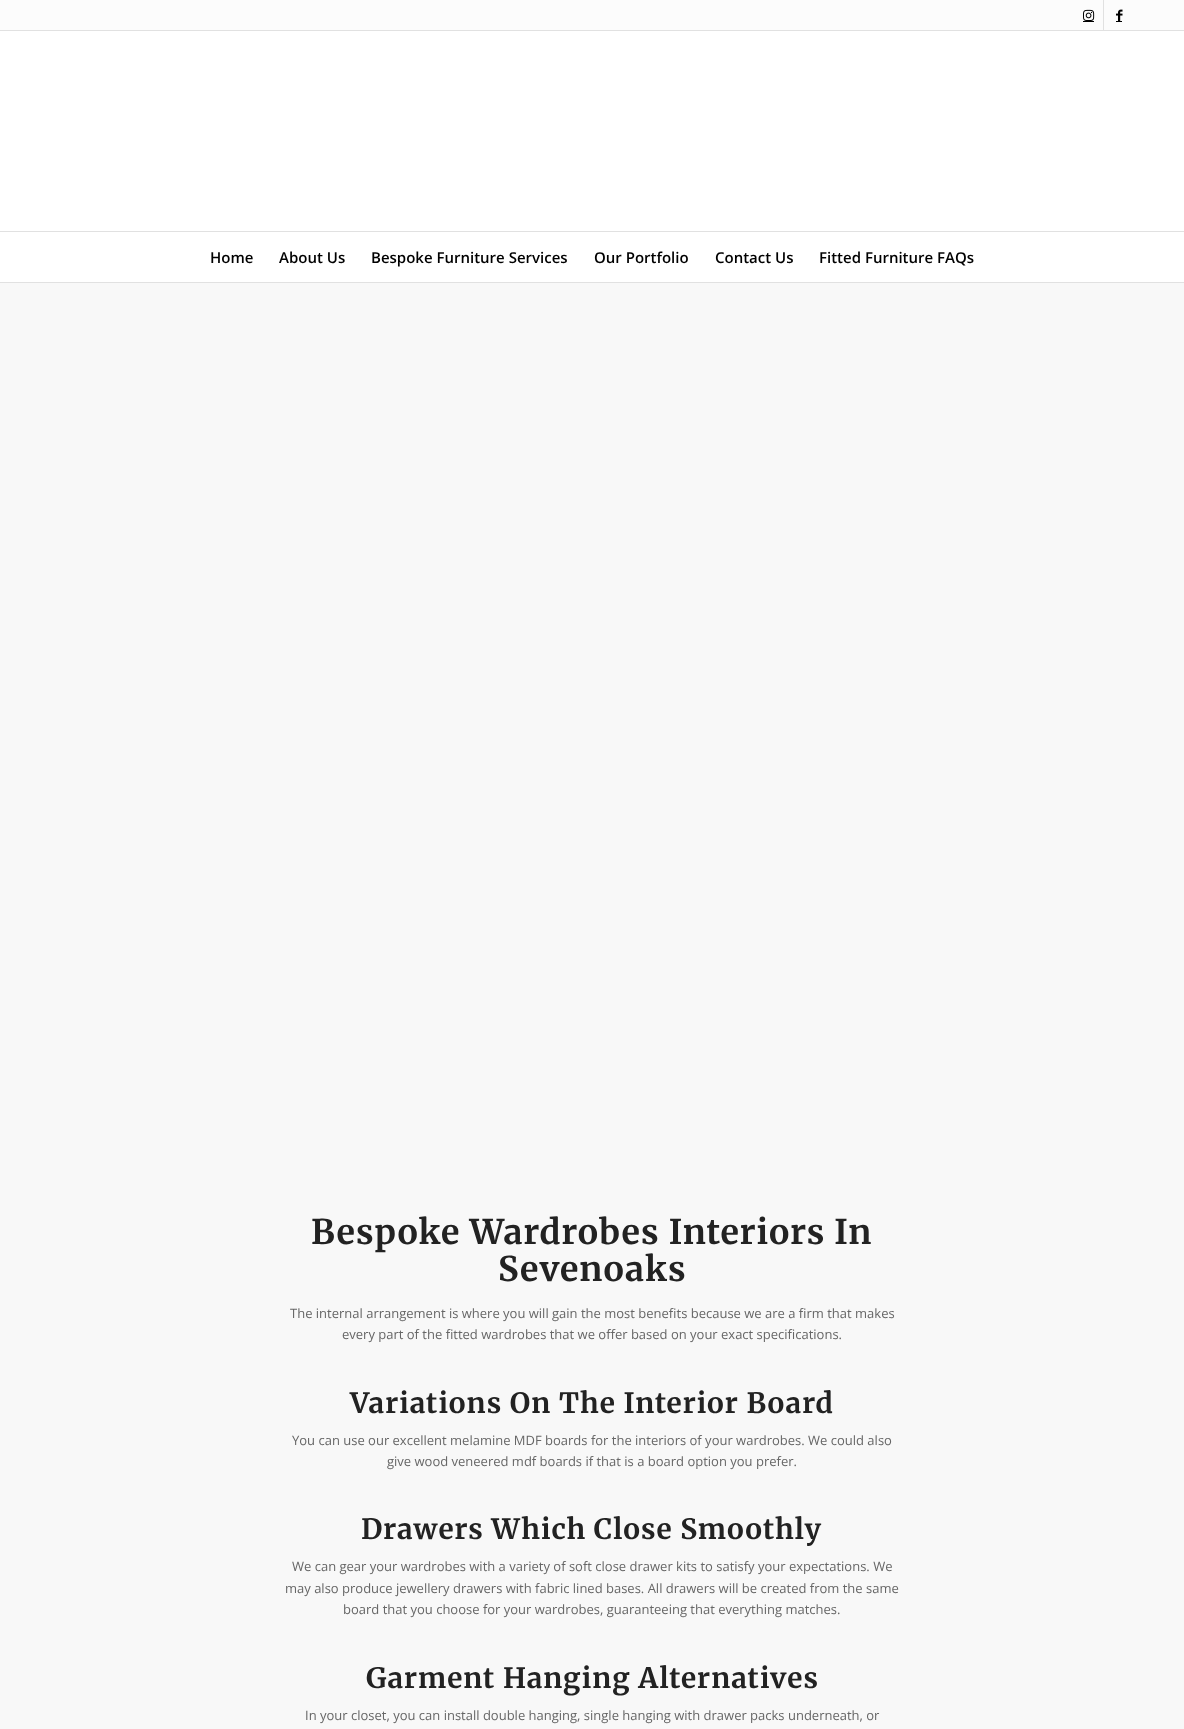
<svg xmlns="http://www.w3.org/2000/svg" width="1184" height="1729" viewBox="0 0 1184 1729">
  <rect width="100%" height="100%" fill="#f8f8f8"/>
  <path d="M0 0h1184v30H0z" fill="#fcfcfc"/>
  <path d="M0 30h1184v1H0z" fill="#e1e1e1"/>
  <path d="M1103 0h1v30H1103z" fill="#e1e1e1"/>
  <image x="1083" y="9" width="12" height="12" href="img/1.png"/>
  <path d="M1083 21h11v1H1083z" fill="#000"/>
  <image x="1116" y="9" width="7" height="12" href="img/2.png"/>
  <path d="M1116 21h6v1H1116z" fill="#000"/>
  <path d="M0 31h1184v251H0z" fill="#fff"/>
  <path d="M0 282h1184v1H0z" fill="#e1e1e1"/>
  <path d="M0 231h1184v1H0z" fill="#e1e1e1"/>
  <g font-family="Open Sans" font-size="15" font-weight="600" fill="#000">
    <text x="210" y="263">Home</text>
    <text x="279" y="263">About Us</text>
    <text x="371" y="263">Bespoke Furniture Services</text>
    <text x="594" y="263">Our Portfolio</text>
    <text x="715" y="263">Contact Us</text>
    <text x="819" y="263">Fitted Furniture FAQs</text>
  </g>
  <g font-family="Merriweather" font-size="34" font-weight="bold" letter-spacing="1" fill="#222">
    <text x="311" y="1244">Bespoke Wardrobes Interiors In</text>
    <text x="498" y="1281">Sevenoaks</text>
  </g>
  <g font-family="Open Sans" font-size="13" fill="#666">
    <text x="290" y="1318">The internal arrangement is where you will gain the most benefits because we are a firm that makes</text>
    <text x="342" y="1339">every part of the fitted wardrobes that we offer based on your exact specifications.</text>
  </g>
  <text x="350" y="1413" font-family="Merriweather" font-size="28" font-weight="bold" letter-spacing="1" fill="#222">Variations On The Interior Board</text>
  <g font-family="Open Sans" font-size="13" fill="#666">
    <text x="292" y="1445">You can use our excellent melamine MDF boards for the interiors of your wardrobes. We could also</text>
    <text x="387" y="1466">give wood veneered mdf boards if that is a board option you prefer.</text>
  </g>
  <text x="361" y="1539" font-family="Merriweather" font-size="28" font-weight="bold" letter-spacing="1" fill="#222">Drawers Which Close Smoothly</text>
  <g font-family="Open Sans" font-size="13" fill="#666">
    <text x="292" y="1571">We can gear your wardrobes with a variety of soft close drawer kits to satisfy your expectations. We</text>
    <text x="285" y="1593">may also produce jewellery drawers with fabric lined bases. All drawers will be created from the same</text>
    <text x="343" y="1614">board that you choose for your wardrobes, guaranteeing that everything matches.</text>
  </g>
  <text x="366" y="1688" font-family="Merriweather" font-size="28" font-weight="bold" letter-spacing="1" fill="#222">Garment Hanging Alternatives</text>
  <text x="305" y="1720" font-family="Open Sans" font-size="13" fill="#666">In your closet, you can install double hanging, single hanging with drawer packs underneath, or</text>
</svg>
